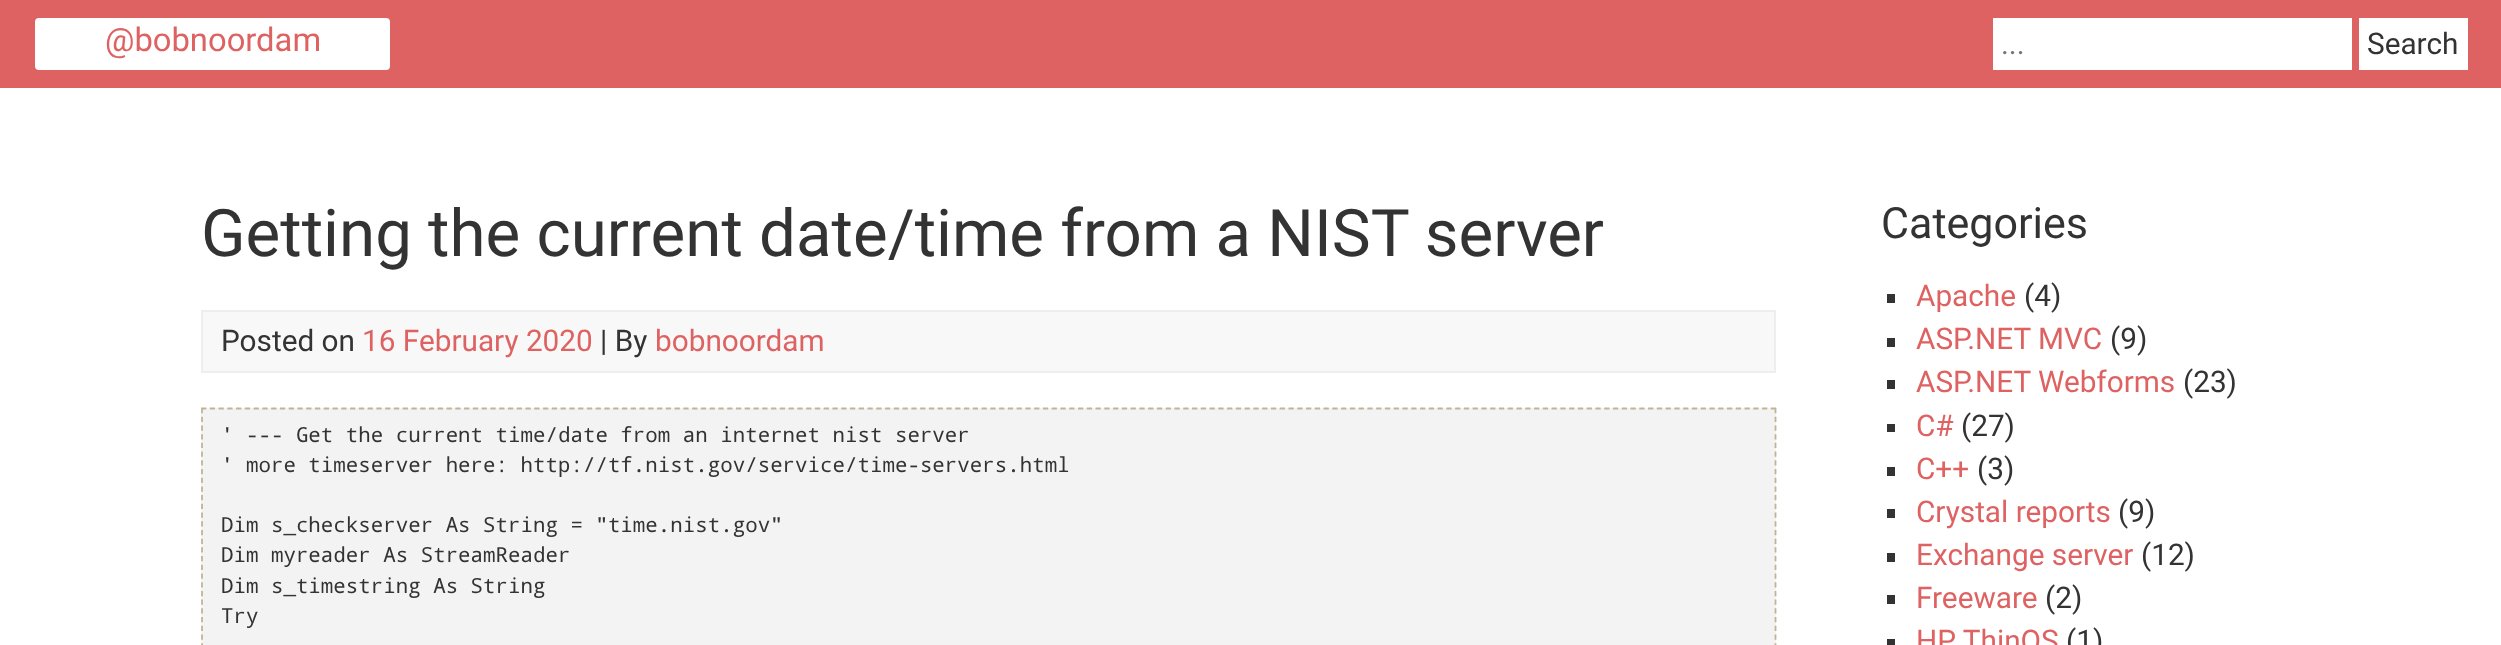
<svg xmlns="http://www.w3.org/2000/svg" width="2501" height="645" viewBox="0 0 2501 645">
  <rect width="100%" height="100%" fill="#fff"/>
  <path d="M0 0h2501v88H0z" fill="#de6262"/>
  <rect x="35" y="18" width="355" height="52" rx="4" fill="#fff"/>
  <path d="M1993 18h359v52H1993z" fill="#fff"/>
  <path d="M2359 18h109v52H2359z" fill="#fff"/>
  <path d="M202 311h1573v61H202z" fill="#f8f8f8" stroke="#eee" stroke-width="2"/>
  <path d="M201 408h1575v237H201z" fill="#f3f3f3"/>
  <path d="M201 408.5H1776" fill="none" stroke="#c1b496" stroke-width="1.8" stroke-dasharray="5.25 3.52"/>
  <path d="M1775.5 408V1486" fill="none" stroke="#c1b496" stroke-width="1.8" stroke-dasharray="5.25 3.46"/>
  <path d="M202 408V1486" fill="none" stroke="#c1b496" stroke-width="1.8" stroke-dasharray="5.25 3.46"/>
  <path d="M1887 294h8v9H1887z" fill="#333"/>
  <path d="M1887 338h8v9H1887z" fill="#333"/>
  <path d="M1887 380h8v9H1887z" fill="#333"/>
  <path d="M1887 424h8v8H1887z" fill="#333"/>
  <path d="M1887 467h8v9H1887z" fill="#333"/>
  <path d="M1887 509h8v9H1887z" fill="#333"/>
  <path d="M1887 553h8v9H1887z" fill="#333"/>
  <path d="M1887 595h8v9H1887z" fill="#333"/>
  <path d="M1887 639h8v6H1887z" fill="#333"/>
  <text x="105" y="51" font-family="Roboto" font-size="32.75" fill="#de6262">@bobnoordam</text>
  <text x="2001" y="54" font-family="Roboto" font-size="29.75" fill="#757575">...</text>
  <text x="2367" y="54" font-family="Roboto" font-size="29.75" fill="#333">Search</text>
  <text x="201" y="256" font-family="Roboto" font-size="65.45" fill="#333">Getting the current date/time from a NIST server</text>
  <text x="221" y="351" font-family="Roboto" font-size="29.75" fill="#333">Posted on</text>
  <text x="362" y="351" font-family="Roboto" font-size="29.75" fill="#de6262">16 February 2020</text>
  <text x="600" y="351" font-family="Roboto" font-size="29.75" fill="#333">| By</text>
  <text x="655" y="351" font-family="Roboto" font-size="29.75" fill="#de6262">bobnoordam</text>
  <g font-family="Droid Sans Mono" font-size="20.8" fill="#333">
    <text x="221" y="442">' --- Get the current time/date from an internet nist server</text>
    <text x="221" y="472">' more timeserver here: http://tf.nist.gov/service/time-servers.html</text>
    <text x="221" y="532">Dim s_checkserver As String = "time.nist.gov"</text>
    <text x="221" y="562">Dim myreader As StreamReader</text>
    <text x="221" y="593">Dim s_timestring As String</text>
    <text x="221" y="623">Try</text>
  </g>
  <text x="1881" y="238" font-family="Roboto" font-size="43" fill="#333">Categories</text>
  <text x="1916" y="306" font-family="Roboto" font-size="29.75" fill="#de6262">Apache</text>
  <text x="2024" y="306" font-family="Roboto" font-size="29.75" fill="#333">(4)</text>
  <text x="1916" y="349" font-family="Roboto" font-size="29.75" fill="#de6262">ASP.NET MVC</text>
  <text x="2110" y="349" font-family="Roboto" font-size="29.75" fill="#333">(9)</text>
  <text x="1916" y="392" font-family="Roboto" font-size="29.75" fill="#de6262">ASP.NET Webforms</text>
  <text x="2183" y="392" font-family="Roboto" font-size="29.75" fill="#333">(23)</text>
  <text x="1916" y="436" font-family="Roboto" font-size="29.75" fill="#de6262">C#</text>
  <text x="1961" y="436" font-family="Roboto" font-size="29.75" fill="#333">(27)</text>
  <text x="1916" y="479" font-family="Roboto" font-size="29.75" fill="#de6262">C++</text>
  <text x="1977" y="479" font-family="Roboto" font-size="29.75" fill="#333">(3)</text>
  <text x="1916" y="522" font-family="Roboto" font-size="29.75" fill="#de6262">Crystal reports</text>
  <text x="2118" y="522" font-family="Roboto" font-size="29.75" fill="#333">(9)</text>
  <text x="1916" y="565" font-family="Roboto" font-size="29.75" fill="#de6262">Exchange server</text>
  <text x="2141" y="565" font-family="Roboto" font-size="29.75" fill="#333">(12)</text>
  <text x="1916" y="608" font-family="Roboto" font-size="29.75" fill="#de6262">Freeware</text>
  <text x="2045" y="608" font-family="Roboto" font-size="29.75" fill="#333">(2)</text>
  <text x="1916" y="651" font-family="Roboto" font-size="29.75" fill="#de6262">HP ThinOS</text>
  <text x="2066" y="651" font-family="Roboto" font-size="29.75" fill="#333">(1)</text>
</svg>
